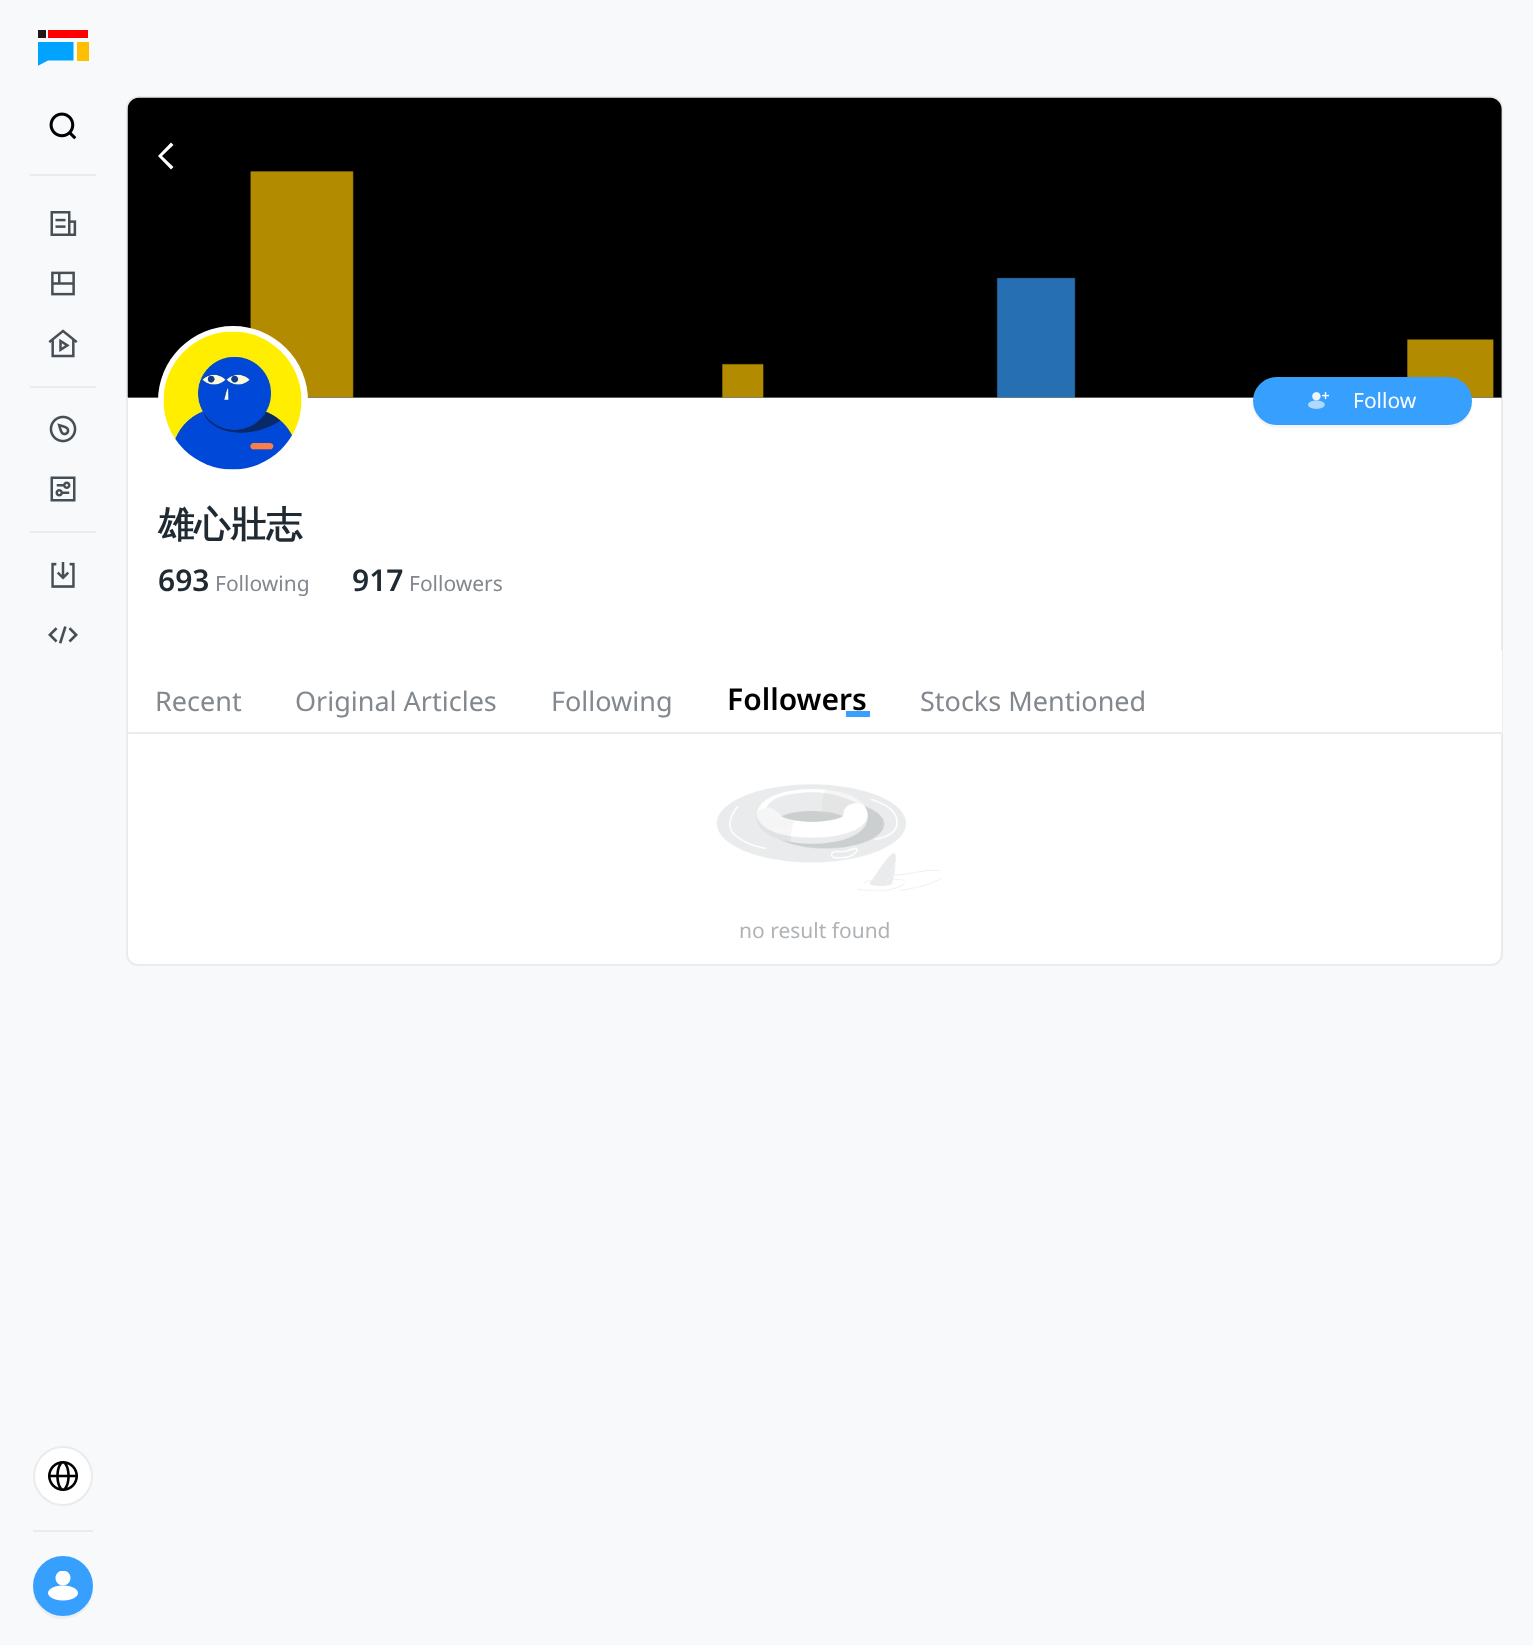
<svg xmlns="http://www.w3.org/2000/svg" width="1533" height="1645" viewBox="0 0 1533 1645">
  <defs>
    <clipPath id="clip1"><path d="M38 30h51v36H38z"/></clipPath>
  </defs>
  <rect width="100%" height="100%" fill="#f8f9fa"/>
  <path d="M38 30h8v8H38z" fill="#251714"/>
  <path d="M48 30h40v8H48z" fill="#f00"/>
  <g clip-path="url(#clip1)">
    <path d="M37.5 42V66L48 60.5H73.5V42Z" fill="#00a3ff"/>
  </g>
  <path d="M77 42h12v19H77z" fill="#febf00"/>
  <path d="M30 174h66v2H30z" fill="#eaebec"/>
  <image x="49" y="112" width="28" height="28" href="img/1.png"/>
  <path d="M30 386h66v2H30z" fill="#eaebec"/>
  <image x="50" y="211" width="27" height="25" href="img/2.png"/>
  <image x="51" y="271" width="24" height="25" href="img/3.png"/>
  <image x="48" y="329" width="30" height="29" href="img/4.png"/>
  <path d="M30 531h66v2H30z" fill="#eaebec"/>
  <image x="49" y="415" width="28" height="28" href="img/5.png"/>
  <image x="50" y="476" width="26" height="26" href="img/6.png"/>
  <image x="51" y="562" width="24" height="26" href="img/7.png"/>
  <image x="48" y="626" width="30" height="18" href="img/8.png"/>
  <path d="M33 1530h60v2H33z" fill="#eaebec"/>
  <circle cx="63" cy="1476" r="29" fill="#fff" stroke="#eaebec" stroke-width="2"/>
  <image x="48" y="1461" width="30" height="30" href="img/9.png"/>
  <path d="M33 1587C33 1594 34 1600 38 1606C55 1631 95 1617 93 1587C91 1625 35 1625 33 1587Z" fill="#edeeef"/>
  <circle cx="63" cy="1586" r="29" fill="#37a0ff" stroke="#37a0ff" stroke-width="2"/>
  <image x="48" y="1571" width="30" height="30" href="img/10.png"/>
  <rect x="127" y="97" width="1375" height="868" rx="11" fill="#fff" stroke="#eaebec" stroke-width="2"/>
  <path d="M140 98H1490C1496.5 98 1502 103.5 1502 110V398H128V110C128 103.5 133.5 98 140 98Z" fill="#afb3b6"/>
  <image x="127" y="97" width="1375" height="301" href="img/11.png"/>
  <path d="M140 98H1490C1496.5 98 1502 103.5 1502 110V398H128V110C128 103.5 133.5 98 140 98Z" fill="#0000004d"/>
  <path d="M173.5 145L171 142.5L158 156L171 169.5L173.5 167L162 156Z" fill="#fff"/>
  <circle cx="233" cy="401" r="75" fill="#fff"/>
  <image x="163" y="331" width="139" height="139" href="img/12.png"/>
  <path d="M1253 406C1254 418 1264 428 1277 428H1448C1461 428 1472 417 1472 404L1471 399L1472 400C1472 414 1461 424 1448 424H1276C1265 424 1255 416 1253 406Z" fill="#f4f4f4"/>
  <rect x="1254" y="378" width="217" height="46" rx="23" fill="#37a0ff" stroke="#37a0ff" stroke-width="2"/>
  <image x="1308" y="392" width="21" height="17" href="img/13.png"/>
  <path d="M1501 650h1v84H1501z" fill="#fff"/>
  <path d="M846 711h24v6H846z" fill="#37a0ff"/>
  <rect x="128" y="732" width="1374" height="2" rx="1" fill="#eaebec"/>
  <image x="716" y="784" width="226" height="107" href="img/14.png"/>
  <text x="1353" y="408" font-family="Noto Sans" font-size="21" fill="#fff">Follow</text>
  <text x="158" y="537" font-family="WenQuanYi Zen Hei" font-size="36" font-weight="bold" fill="#1f2a32">雄心壯志</text>
  <text x="158" y="591" font-family="Noto Sans" font-size="30" font-weight="600" fill="#1f2a32">693</text>
  <text x="215" y="591" font-family="Noto Sans" font-size="21" fill="#82888d">Following</text>
  <text x="352" y="591" font-family="Noto Sans" font-size="30" font-weight="600" fill="#1f2a32">917</text>
  <text x="409" y="591" font-family="Noto Sans" font-size="21" fill="#82888d">Followers</text>
  <g font-family="Noto Sans" font-size="27" fill="#82888d">
    <text x="155" y="711">Recent</text>
    <text x="295" y="711">Original Articles</text>
    <text x="551" y="711">Following</text>
  </g>
  <text x="727" y="710" font-family="Noto Sans" font-size="30" font-weight="600" fill="#000">Followers</text>
  <text x="920" y="711" font-family="Noto Sans" font-size="27" fill="#82888d">Stocks Mentioned</text>
  <text x="739" y="938" font-family="Noto Sans" font-size="21" fill="#afb3b6">no result found</text>
</svg>
